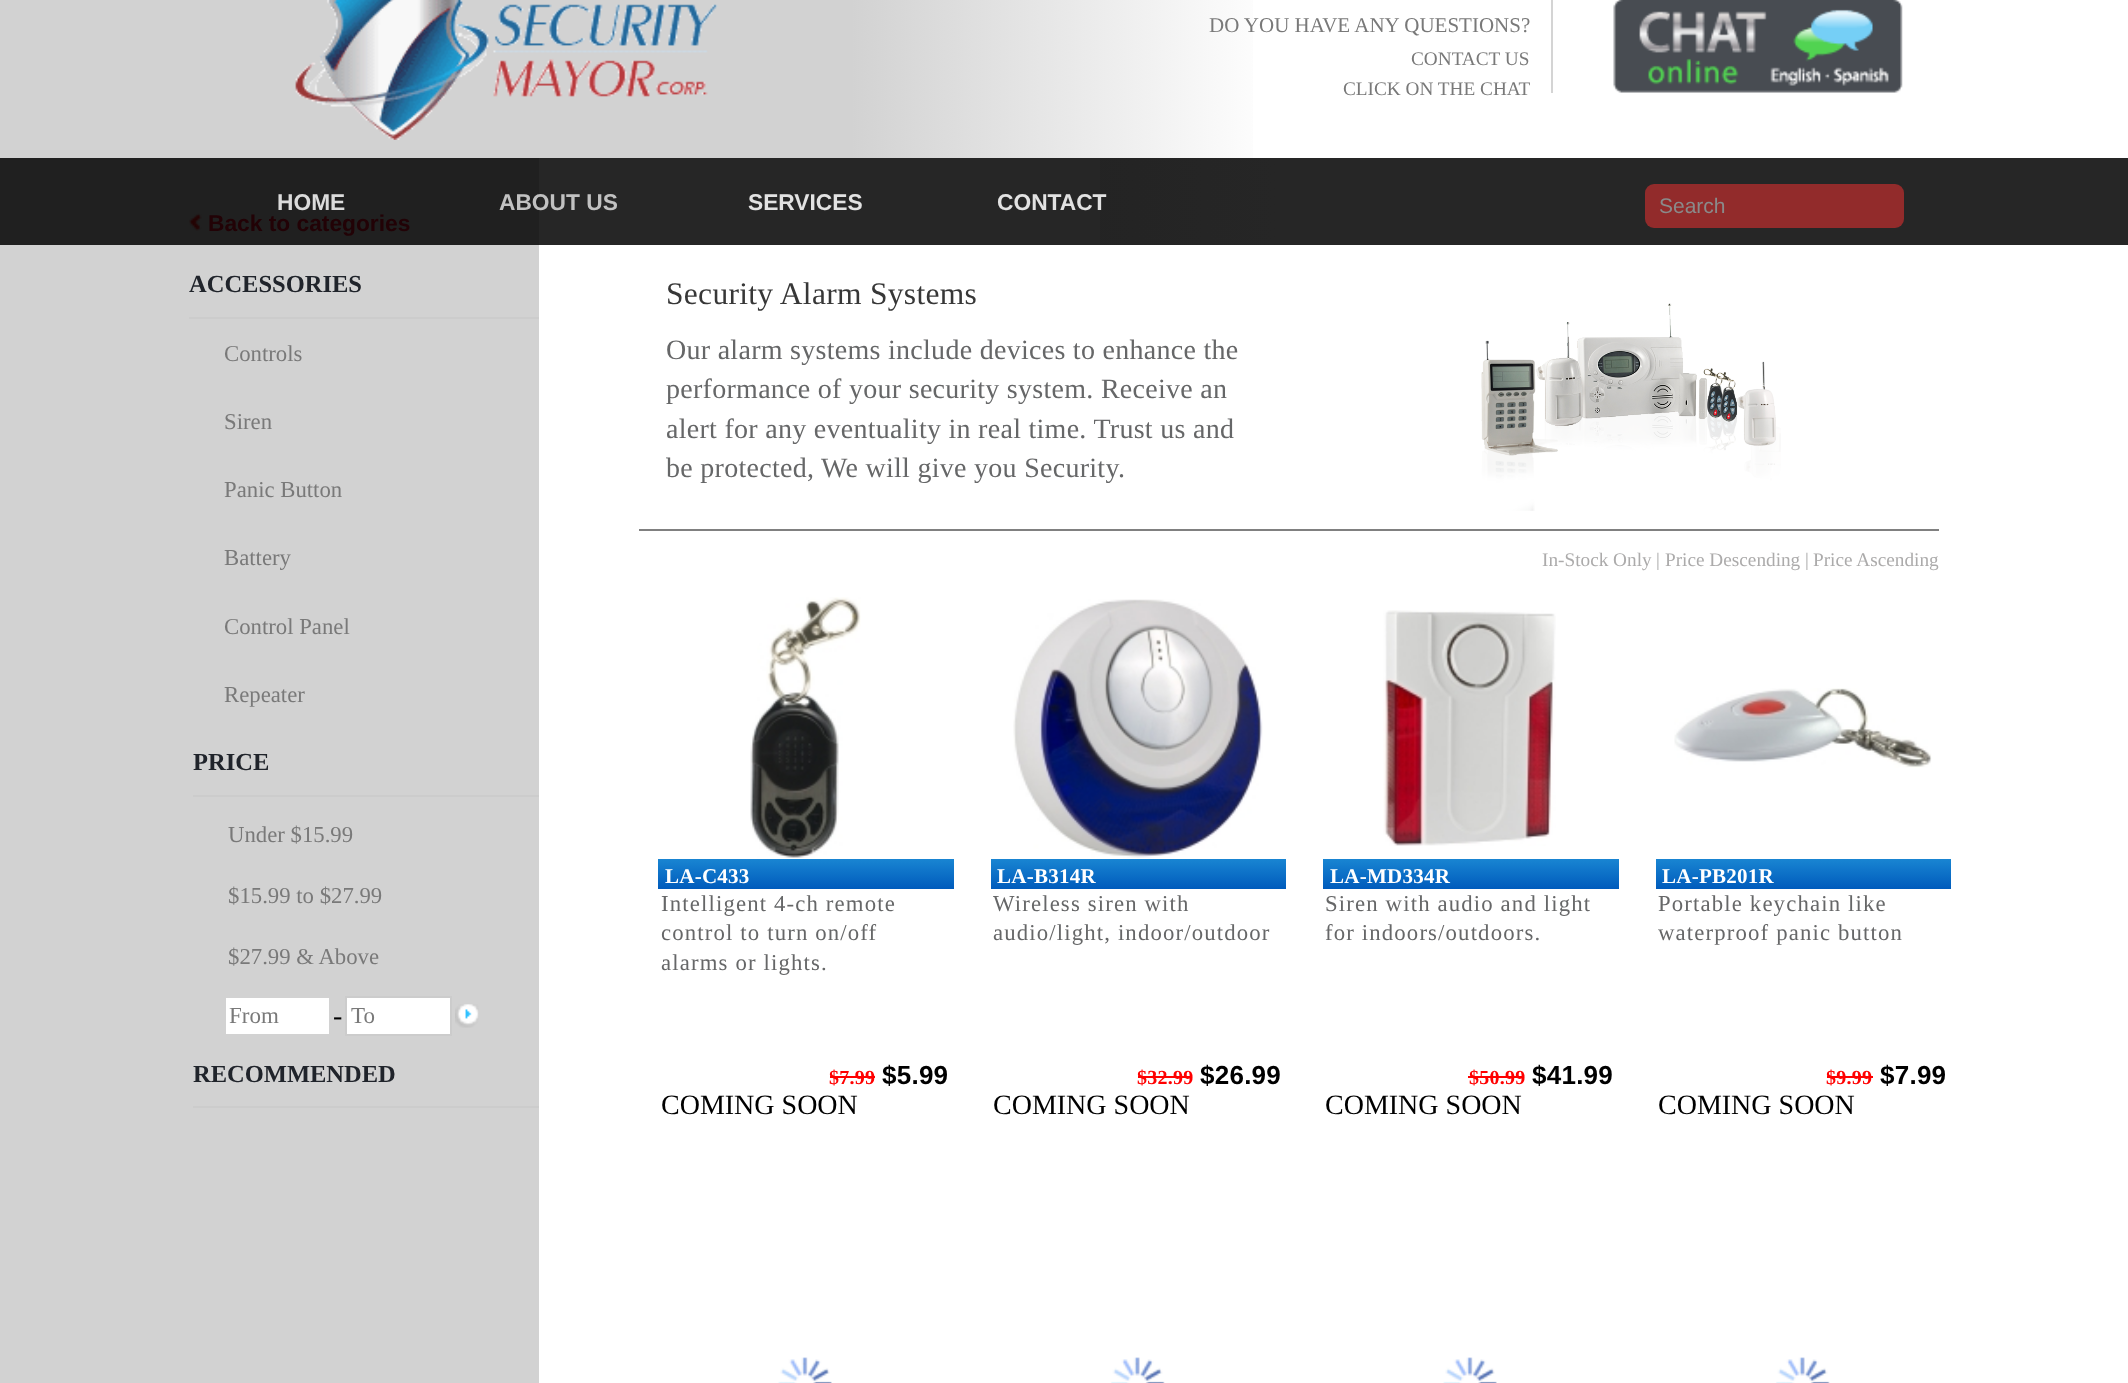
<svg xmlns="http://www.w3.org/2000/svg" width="2128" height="1383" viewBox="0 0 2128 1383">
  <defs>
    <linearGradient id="g1" gradientUnits="userSpaceOnUse" x1="0" y1="1104" x2="2128" y2="1104"><stop offset="0" stop-color="#d2d2d2"/><stop offset="0.4" stop-color="#d2d2d2"/><stop offset="0.6" stop-color="#fff"/><stop offset="1" stop-color="#fff"/></linearGradient>
    <linearGradient id="g2" gradientUnits="userSpaceOnUse" x1="0" y1="1104" x2="2128" y2="1104"><stop offset="0" stop-color="#202020"/><stop offset="0.4" stop-color="#202020"/><stop offset="0.6" stop-color="#262626"/><stop offset="1" stop-color="#262626"/></linearGradient>
    <linearGradient id="g3" gradientUnits="userSpaceOnUse" x1="806" y1="859" x2="806" y2="889"><stop offset="0" stop-color="#1985d2"/><stop offset="1" stop-color="#005bbc"/></linearGradient>
    <linearGradient id="g4" gradientUnits="userSpaceOnUse" x1="1138" y1="859" x2="1138" y2="889"><stop offset="0" stop-color="#1985d2"/><stop offset="1" stop-color="#005bbc"/></linearGradient>
    <linearGradient id="g5" gradientUnits="userSpaceOnUse" x1="1471" y1="859" x2="1471" y2="889"><stop offset="0" stop-color="#1985d2"/><stop offset="1" stop-color="#005bbc"/></linearGradient>
    <linearGradient id="g6" gradientUnits="userSpaceOnUse" x1="1803" y1="859" x2="1803" y2="889"><stop offset="0" stop-color="#1985d2"/><stop offset="1" stop-color="#005bbc"/></linearGradient>
  </defs>
  <rect width="100%" height="100%" fill="#fff"/>
  <path d="M0 0h1253v1383H0z" fill="url(#g1)"/>
  <path d="M0 158h2128v87H0z" fill="url(#g2)"/>
  <image x="295" y="0" width="423" height="140" href="img/1.png"/>
  <path d="M1551 0h2v93H1551z" fill="#d4d4d4"/>
  <image x="1613" y="0" width="290" height="93" href="img/2.png"/>
  <rect x="1645" y="184" width="259" height="44" rx="9" fill="#922b2b"/>
  <image x="189" y="213" width="13" height="18" href="img/3.png"/>
  <path d="M189 317h350v2H189z" fill="#ccc"/>
  <path d="M193 795h346v2H193z" fill="#ccc"/>
  <path d="M226 998h103v36H226z" fill="#fff"/>
  <path d="M346 997h105v38H346z" fill="#fff" stroke="#ccc" stroke-width="2"/>
  <image x="455" y="1004" width="24" height="24" href="img/4.png"/>
  <path d="M193 1106h346v2H193z" fill="#ccc"/>
  <path d="M539 245h714v1138H539z" fill="#fff"/>
  <path d="M539 158h561v87H539z" fill="#262626"/>
  <path d="M639 529h1300v2H639z" fill="#808080"/>
  <image x="1481" y="303" width="300" height="208" href="img/5.png"/>
  <image x="750" y="597" width="111" height="261" href="img/6.png"/>
  <path d="M658 859h296v30H658z" fill="url(#g3)"/>
  <path d="M830 1076h45v2H830z" fill="#f00"/>
  <image x="1013" y="599" width="250" height="260" href="img/7.png"/>
  <path d="M991 859h295v30H991z" fill="url(#g4)"/>
  <path d="M1138 1076h54v2H1138z" fill="#f00"/>
  <image x="1383" y="610" width="173" height="236" href="img/8.png"/>
  <path d="M1323 859h296v30H1323z" fill="url(#g5)"/>
  <path d="M1468 1076h56v2H1468z" fill="#f00"/>
  <image x="1674" y="688" width="258" height="80" href="img/9.png"/>
  <path d="M1656 859h295v30H1656z" fill="url(#g6)"/>
  <path d="M1827 1076h46v2H1827z" fill="#f00"/>
  <image x="778" y="1357" width="54" height="26" href="img/10.png"/>
  <image x="1111" y="1357" width="54" height="26" href="img/11.png"/>
  <image x="1443" y="1357" width="54" height="26" href="img/10.png"/>
  <image x="1776" y="1357" width="54" height="26" href="img/11.png"/>
  <text x="1209" y="32" font-family="Liberation Serif" font-size="21" fill="#797979">DO YOU HAVE ANY QUESTIONS?</text>
  <g font-family="Liberation Serif" font-size="19.25" fill="#797979">
    <text x="1411" y="65">CONTACT US</text>
    <text x="1343" y="95">CLICK ON THE CHAT</text>
  </g>
  <text x="277" y="210" font-family="Liberation Sans" font-size="22.75" font-weight="bold" fill="#dbdbdb">HOME</text>
  <text x="499" y="210" font-family="Liberation Sans" font-size="22.75" font-weight="bold" fill="#c1c1c1">ABOUT US</text>
  <g font-family="Liberation Sans" font-size="22.75" font-weight="bold" fill="#e2e2e2">
    <text x="748" y="210">SERVICES</text>
    <text x="997" y="210">CONTACT</text>
  </g>
  <text x="1659" y="213" font-family="Liberation Sans" font-size="21" fill="#8a8a8a">Search</text>
  <text x="208" y="231" font-family="Liberation Sans" font-size="22.75" font-weight="bold" fill="#220206">Back to categories</text>
  <text x="189" y="292" font-family="Liberation Serif" font-size="24.5" font-weight="bold" fill="#20242b">ACCESSORIES</text>
  <g font-family="Liberation Serif" font-size="22.75" fill="#797979">
    <text x="224" y="361">Controls</text>
    <text x="224" y="429">Siren</text>
    <text x="224" y="497">Panic Button</text>
    <text x="224" y="565">Battery</text>
    <text x="224" y="634">Control Panel</text>
    <text x="224" y="702">Repeater</text>
  </g>
  <text x="193" y="770" font-family="Liberation Serif" font-size="24.5" font-weight="bold" fill="#20242b">PRICE</text>
  <g font-family="Liberation Serif" font-size="22.75" fill="#797979">
    <text x="228" y="842">Under $15.99</text>
    <text x="228" y="903">$15.99 to $27.99</text>
    <text x="228" y="964">$27.99 &amp; Above</text>
  </g>
  <text x="229" y="1023" font-family="Liberation Serif" font-size="23" fill="#797979">From</text>
  <text x="333" y="1025" font-family="Liberation Serif" font-size="28" fill="#000">-</text>
  <text x="351" y="1023" font-family="Liberation Serif" font-size="23" fill="#797979">To</text>
  <text x="193" y="1082" font-family="Liberation Serif" font-size="24.5" font-weight="bold" fill="#20242b">RECOMMENDED</text>
  <text x="666" y="304" font-family="Liberation Serif" font-size="31.5" letter-spacing="0.3" fill="#373737">Security Alarm Systems</text>
  <g font-family="Liberation Serif" font-size="28" letter-spacing="0.28" fill="#666768">
    <text x="666" y="359">Our alarm systems include devices to enhance the</text>
    <text x="666" y="398">performance of your security system. Receive an</text>
    <text x="666" y="438">alert for any eventuality in real time. Trust us and</text>
    <text x="666" y="477">be protected, We will give you Security.</text>
  </g>
  <text x="1542" y="566" font-family="Liberation Serif" font-size="19.25" fill="#acabab">In-Stock Only</text>
  <text x="1656" y="566" font-family="Liberation Serif" font-size="19" fill="#acabab">|</text>
  <text x="1665" y="566" font-family="Liberation Serif" font-size="19.25" fill="#acabab">Price Descending</text>
  <text x="1805" y="566" font-family="Liberation Serif" font-size="19" fill="#acabab">|</text>
  <text x="1813" y="566" font-family="Liberation Serif" font-size="19.25" fill="#acabab">Price Ascending</text>
  <text x="665" y="883" font-family="Liberation Serif" font-size="21" font-weight="bold" letter-spacing="0.25" fill="#fff">LA-C433</text>
  <g font-family="Liberation Serif" font-size="22.75" letter-spacing="1.15" fill="#666768">
    <text x="661" y="911">Intelligent 4-ch remote</text>
    <text x="661" y="940">control to turn on/off</text>
    <text x="661" y="970">alarms or lights.</text>
  </g>
  <text x="829" y="1084" font-family="Liberation Serif" font-size="20" font-weight="bold" letter-spacing="0.25" fill="#f00">$7.99</text>
  <text x="882" y="1084" font-family="Liberation Sans" font-size="26" font-weight="bold" letter-spacing="0.25" fill="#000">$5.99</text>
  <text x="661" y="1114" font-family="Liberation Serif" font-size="28" fill="#000">COMING SOON</text>
  <text x="997" y="883" font-family="Liberation Serif" font-size="21" font-weight="bold" letter-spacing="0.25" fill="#fff">LA-B314R</text>
  <g font-family="Liberation Serif" font-size="22.75" letter-spacing="1.15" fill="#666768">
    <text x="993" y="911">Wireless siren with</text>
    <text x="993" y="940">audio/light, indoor/outdoor</text>
  </g>
  <text x="1137" y="1084" font-family="Liberation Serif" font-size="20" font-weight="bold" letter-spacing="0.25" fill="#f00">$32.99</text>
  <text x="1200" y="1084" font-family="Liberation Sans" font-size="26" font-weight="bold" letter-spacing="0.25" fill="#000">$26.99</text>
  <text x="993" y="1114" font-family="Liberation Serif" font-size="28" fill="#000">COMING SOON</text>
  <text x="1330" y="883" font-family="Liberation Serif" font-size="21" font-weight="bold" letter-spacing="0.25" fill="#fff">LA-MD334R</text>
  <g font-family="Liberation Serif" font-size="22.75" letter-spacing="1.15" fill="#666768">
    <text x="1325" y="911">Siren with audio and light</text>
    <text x="1325" y="940">for indoors/outdoors.</text>
  </g>
  <text x="1469" y="1084" font-family="Liberation Serif" font-size="20" font-weight="bold" letter-spacing="0.25" fill="#f00">$50.99</text>
  <text x="1532" y="1084" font-family="Liberation Sans" font-size="26" font-weight="bold" letter-spacing="0.25" fill="#000">$41.99</text>
  <text x="1325" y="1114" font-family="Liberation Serif" font-size="28" fill="#000">COMING SOON</text>
  <text x="1662" y="883" font-family="Liberation Serif" font-size="21" font-weight="bold" letter-spacing="0.25" fill="#fff">LA-PB201R</text>
  <g font-family="Liberation Serif" font-size="22.75" letter-spacing="1.15" fill="#666768">
    <text x="1658" y="911">Portable keychain like</text>
    <text x="1658" y="940">waterproof panic button</text>
  </g>
  <text x="1826" y="1084" font-family="Liberation Serif" font-size="20" font-weight="bold" letter-spacing="0.25" fill="#f00">$9.99</text>
  <text x="1880" y="1084" font-family="Liberation Sans" font-size="26" font-weight="bold" letter-spacing="0.25" fill="#000">$7.99</text>
  <text x="1658" y="1114" font-family="Liberation Serif" font-size="28" fill="#000">COMING SOON</text>
</svg>
